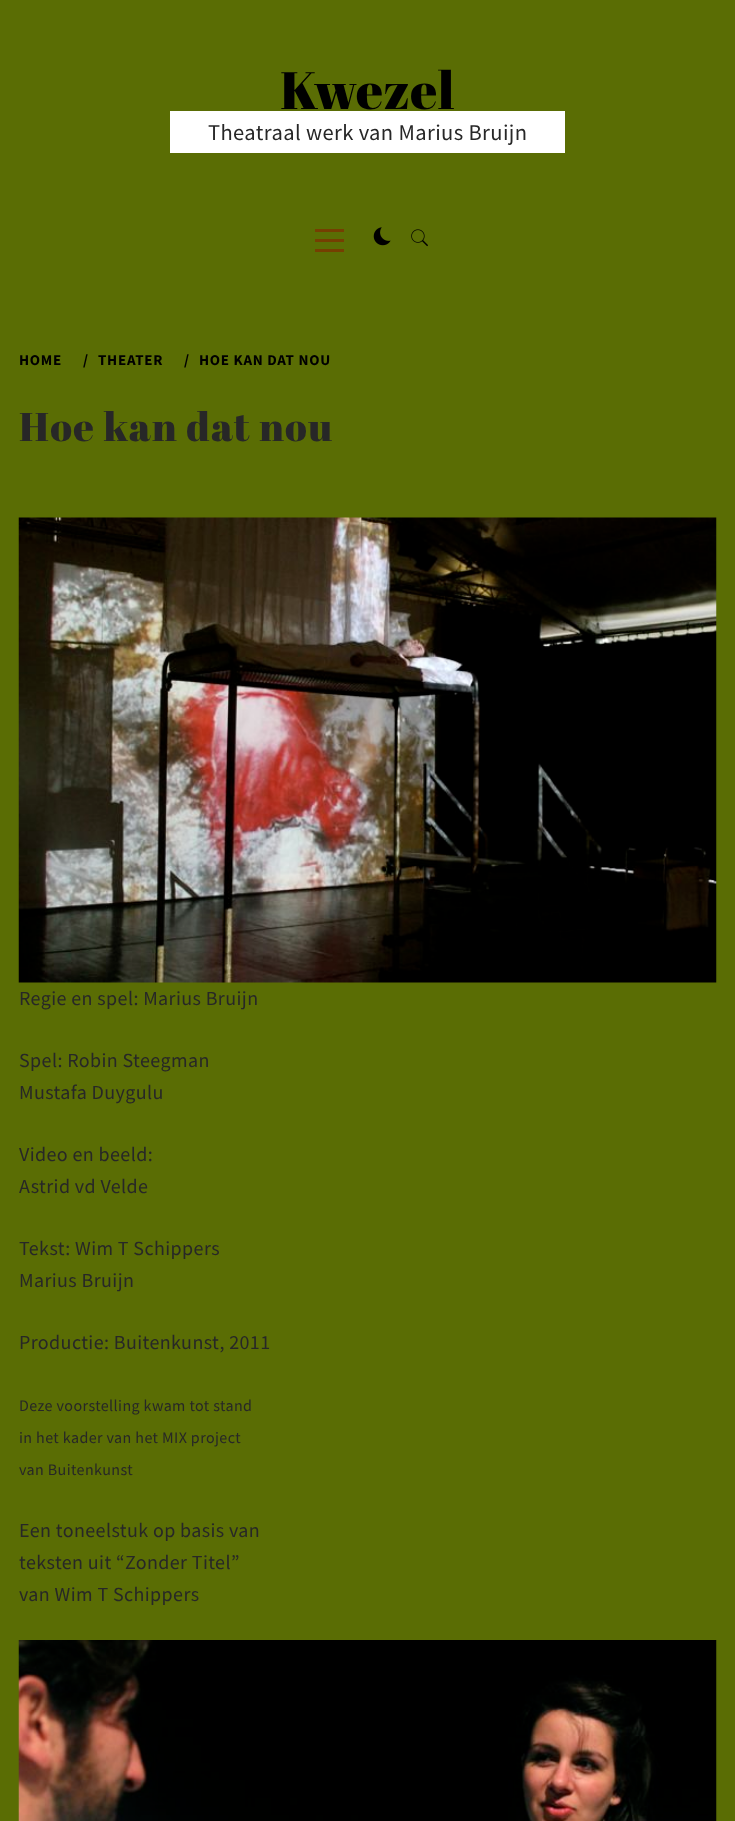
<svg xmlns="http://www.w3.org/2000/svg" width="735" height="1821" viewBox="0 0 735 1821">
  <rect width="100%" height="100%" fill="#5a6d04"/>
  <path d="M170 111h395v42H170z" fill="#fff"/>
  <path d="M315 239h29v3H315z" fill="#753f01"/>
  <path d="M315 229h29v3H315z" fill="#753f01"/>
  <path d="M315 249h29v3H315z" fill="#753f01"/>
  <image x="373" y="227" width="18" height="19" href="img/1.png"/>
  <image x="411" y="229" width="17" height="18" href="img/2.png"/>
  <image x="18" y="517" width="699" height="466" href="img/3.png"/>
  <image x="18" y="1640" width="699" height="181" href="img/4.png"/>
  <text x="280" y="109" font-family="Abril Fatface" font-size="52.5" letter-spacing="0.4" fill="#000">Kwezel</text>
  <text x="208" y="140" font-family="Source Sans Pro" font-size="22.5" letter-spacing="0.4" fill="#272727">Theatraal werk van Marius Bruijn</text>
  <g font-family="Source Sans Pro" font-size="15" font-weight="bold" letter-spacing="0.75" fill="#000">
    <text x="19" y="365">HOME</text>
    <text x="83" y="365">/</text>
    <text x="98" y="365">THEATER</text>
    <text x="184" y="365">/</text>
    <text x="199" y="365">HOE KAN DAT NOU</text>
  </g>
  <text x="19" y="441" font-family="Abril Fatface" font-size="40" letter-spacing="1.25" fill="#272727">Hoe kan dat nou</text>
  <g font-family="Source Sans Pro" font-size="20" letter-spacing="0.4" fill="#272727">
    <text x="19" y="1005">Regie en spel: Marius Bruijn</text>
    <text x="19" y="1067">Spel: Robin Steegman</text>
    <text x="19" y="1099">Mustafa Duygulu</text>
    <text x="19" y="1161">Video en beeld:</text>
    <text x="19" y="1193">Astrid vd Velde</text>
    <text x="19" y="1255">Tekst: Wim T Schippers</text>
    <text x="19" y="1287">Marius Bruijn</text>
    <text x="19" y="1349">Productie: Buitenkunst, 2011</text>
  </g>
  <g font-family="Source Sans Pro" font-size="16" letter-spacing="0.4" fill="#272727">
    <text x="19" y="1411">Deze voorstelling kwam tot stand</text>
    <text x="19" y="1443">in het kader van het MIX project</text>
    <text x="19" y="1475">van Buitenkunst</text>
  </g>
  <g font-family="Source Sans Pro" font-size="20" letter-spacing="0.4" fill="#272727">
    <text x="19" y="1537">Een toneelstuk op basis van</text>
    <text x="19" y="1569">teksten uit “Zonder Titel”</text>
    <text x="19" y="1601">van Wim T Schippers</text>
  </g>
</svg>
